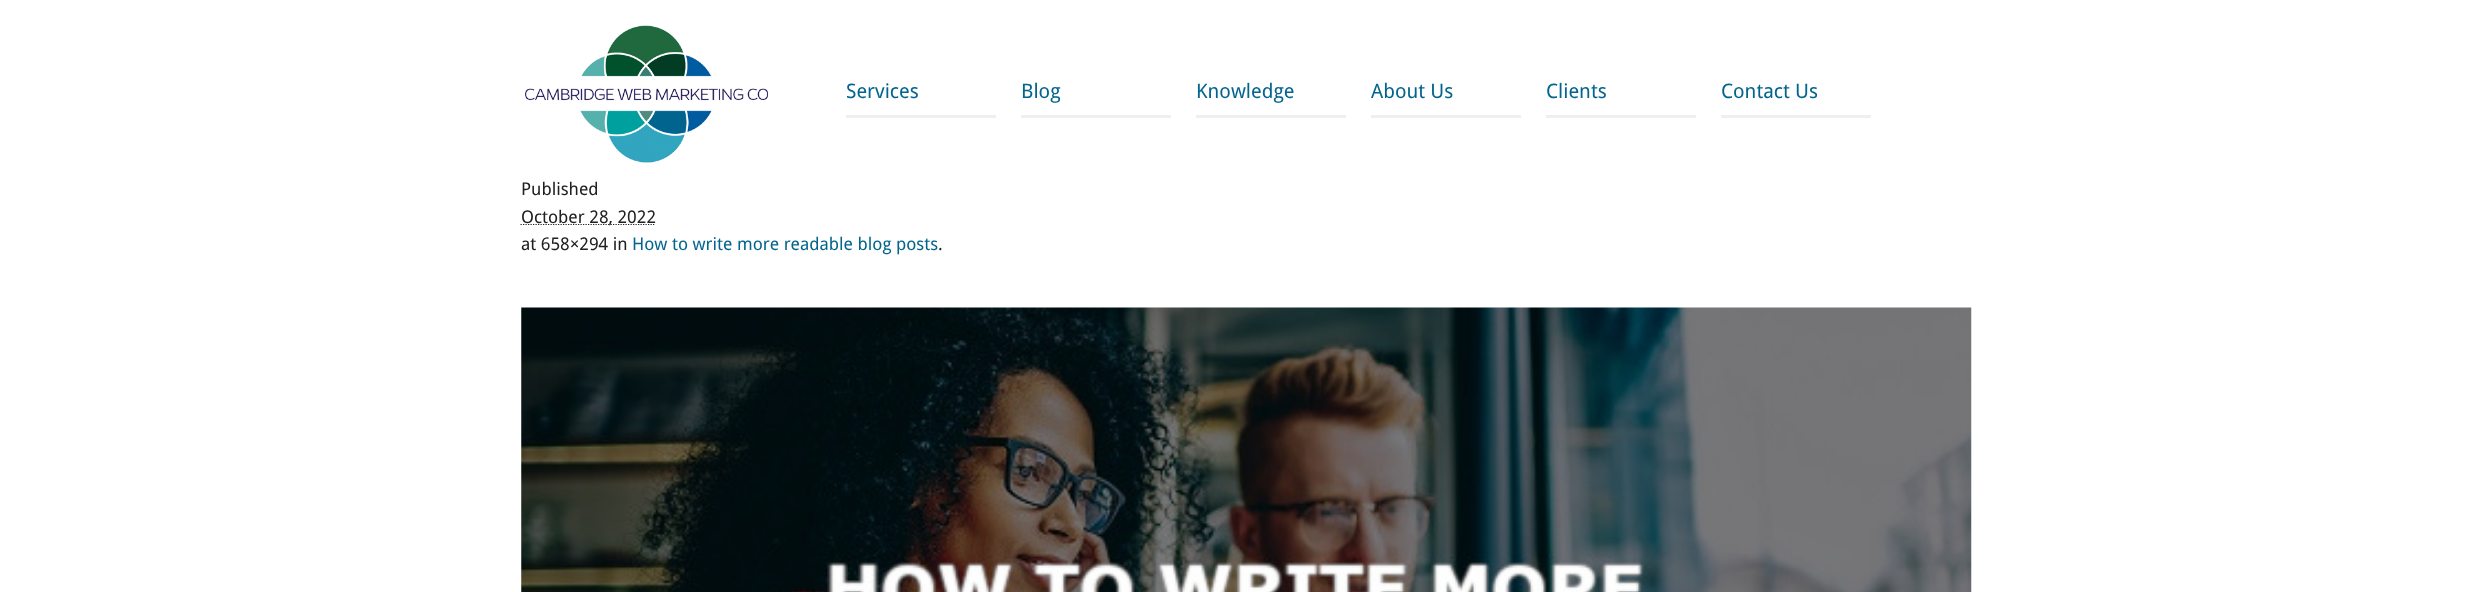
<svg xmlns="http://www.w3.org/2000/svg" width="2491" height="592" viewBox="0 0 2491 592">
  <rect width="100%" height="100%" fill="#fff"/>
  <image x="525" y="25" width="243" height="138" href="img/1.png"/>
  <path d="M846 115h150v3H846z" fill="#eff0ee"/>
  <path d="M1021 115h150v3H1021z" fill="#eff0ee"/>
  <path d="M1196 115h150v3H1196z" fill="#eff0ee"/>
  <path d="M1371 115h150v3H1371z" fill="#eff0ee"/>
  <path d="M1546 115h150v3H1546z" fill="#eff0ee"/>
  <path d="M1721 115h150v3H1721z" fill="#eff0ee"/>
  <path d="M520.5 224.5H655.5" fill="none" stroke="#202020" stroke-width="1.2" stroke-dasharray="1.25 1.25"/>
  <image x="521" y="307" width="1451" height="285" href="img/2.png"/>
  <g font-family="Droid Sans" font-size="20" fill="#03658d">
    <text x="846" y="98">Services</text>
    <text x="1021" y="98">Blog</text>
    <text x="1196" y="98">Knowledge</text>
    <text x="1371" y="98">About Us</text>
    <text x="1546" y="98">Clients</text>
    <text x="1721" y="98">Contact Us</text>
  </g>
  <g font-family="Droid Sans" font-size="17.5" fill="#202020">
    <text x="521" y="195">Published</text>
    <text x="521" y="223">October 28, 2022</text>
    <text x="521" y="250">at 658×294 in</text>
  </g>
  <text x="632" y="250" font-family="Droid Sans" font-size="17.5" fill="#03658d">How to write more readable blog posts</text>
  <text x="938" y="250" font-family="Droid Sans" font-size="17.5" fill="#202020">.</text>
</svg>
